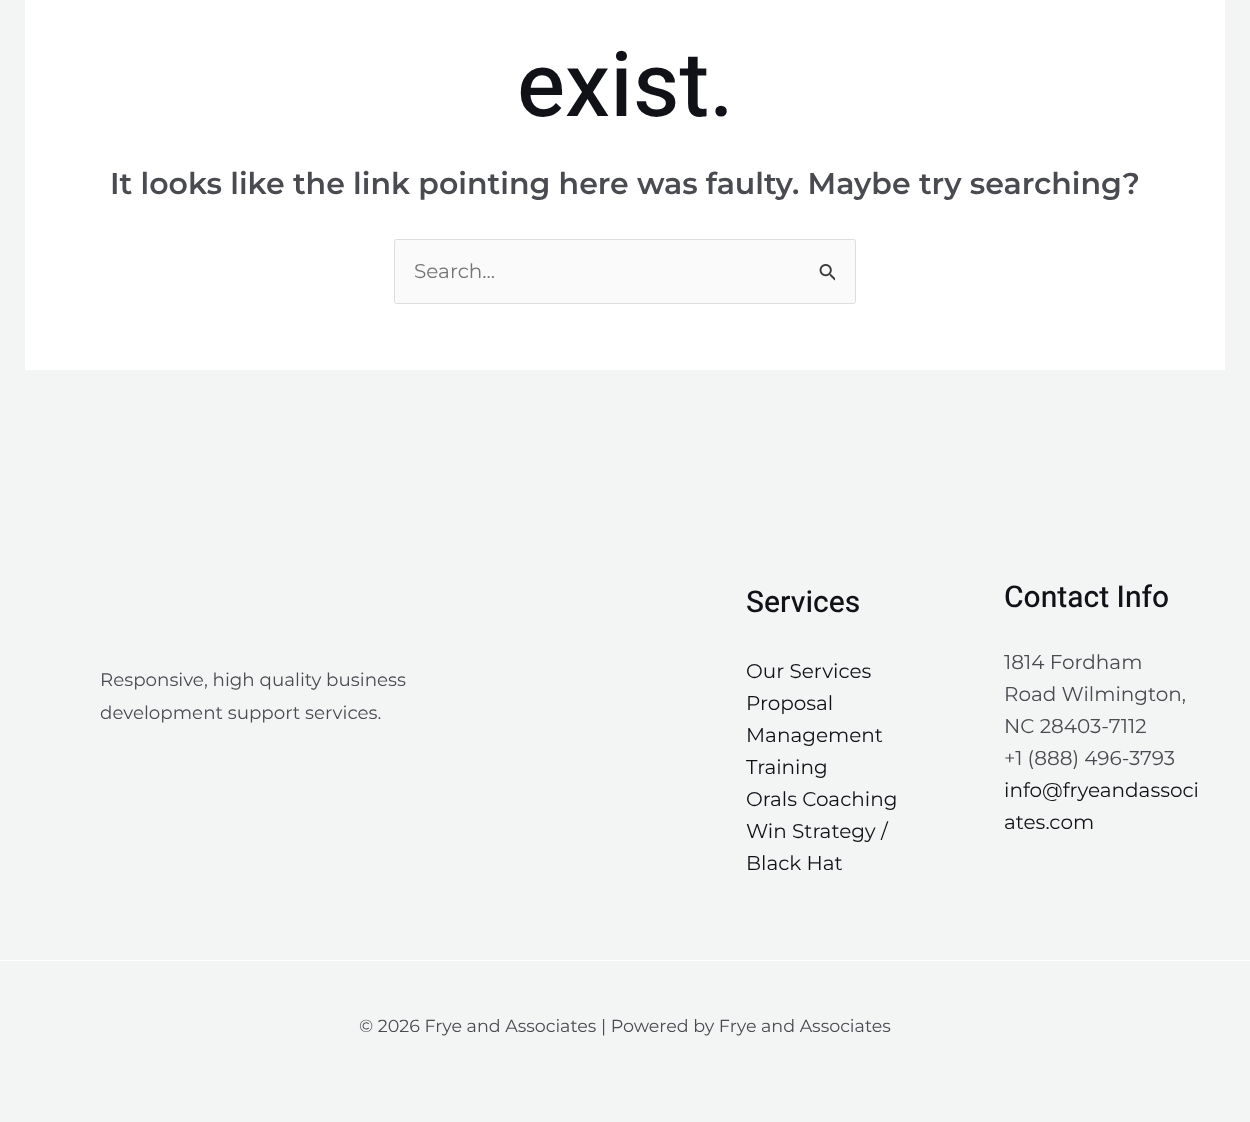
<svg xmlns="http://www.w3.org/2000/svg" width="1250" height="1122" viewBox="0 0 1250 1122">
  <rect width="100%" height="100%" fill="#f3f5f5"/>
  <path d="M25 0h1200v370H25z" fill="#fff"/>
  <rect x="394.5" y="239.5" width="461" height="64" rx="2" fill="#fafafa" stroke="#ddd"/>
  <image x="819" y="264" width="16" height="17" href="img/1.png"/>
  <path d="M0 960h1250v1H0z" fill="#fff"/>
  <text x="517" y="116" font-family="Heebo" font-size="90" font-weight="500" fill="#101218">exist.</text>
  <text x="110" y="194" font-family="Montserrat" font-size="30" font-weight="600" fill="#494b51">It looks like the link pointing here was faulty. Maybe try searching?</text>
  <text x="414" y="278" font-family="Montserrat" font-size="20" fill="#757575">Search...</text>
  <g font-family="Montserrat" font-size="18.3" fill="#494b51">
    <text x="100" y="686">Responsive, high quality business</text>
    <text x="100" y="719">development support services.</text>
  </g>
  <text x="746" y="612" font-family="Heebo" font-size="30" font-weight="500" fill="#101218">Services</text>
  <g font-family="Montserrat" font-size="20" fill="#101218">
    <text x="746" y="678">Our Services</text>
    <text x="746" y="710">Proposal</text>
    <text x="746" y="742">Management</text>
    <text x="746" y="774">Training</text>
    <text x="746" y="806">Orals Coaching</text>
    <text x="746" y="838">Win Strategy /</text>
    <text x="746" y="870">Black Hat</text>
  </g>
  <text x="1004" y="607" font-family="Heebo" font-size="30" font-weight="500" fill="#101218">Contact Info</text>
  <g font-family="Montserrat" font-size="20" fill="#494b51">
    <text x="1004" y="669">1814 Fordham</text>
    <text x="1004" y="701">Road Wilmington,</text>
    <text x="1004" y="733">NC 28403-7112</text>
    <text x="1004" y="765">+1 (888) 496-3793</text>
  </g>
  <g font-family="Montserrat" font-size="20" fill="#101218">
    <text x="1004" y="797">info@fryeandassoci</text>
    <text x="1004" y="829">ates.com</text>
  </g>
  <text x="359" y="1032" font-family="Montserrat" font-size="17.5" fill="#494b51">© 2026 Frye and Associates | Powered by Frye and Associates</text>
</svg>
